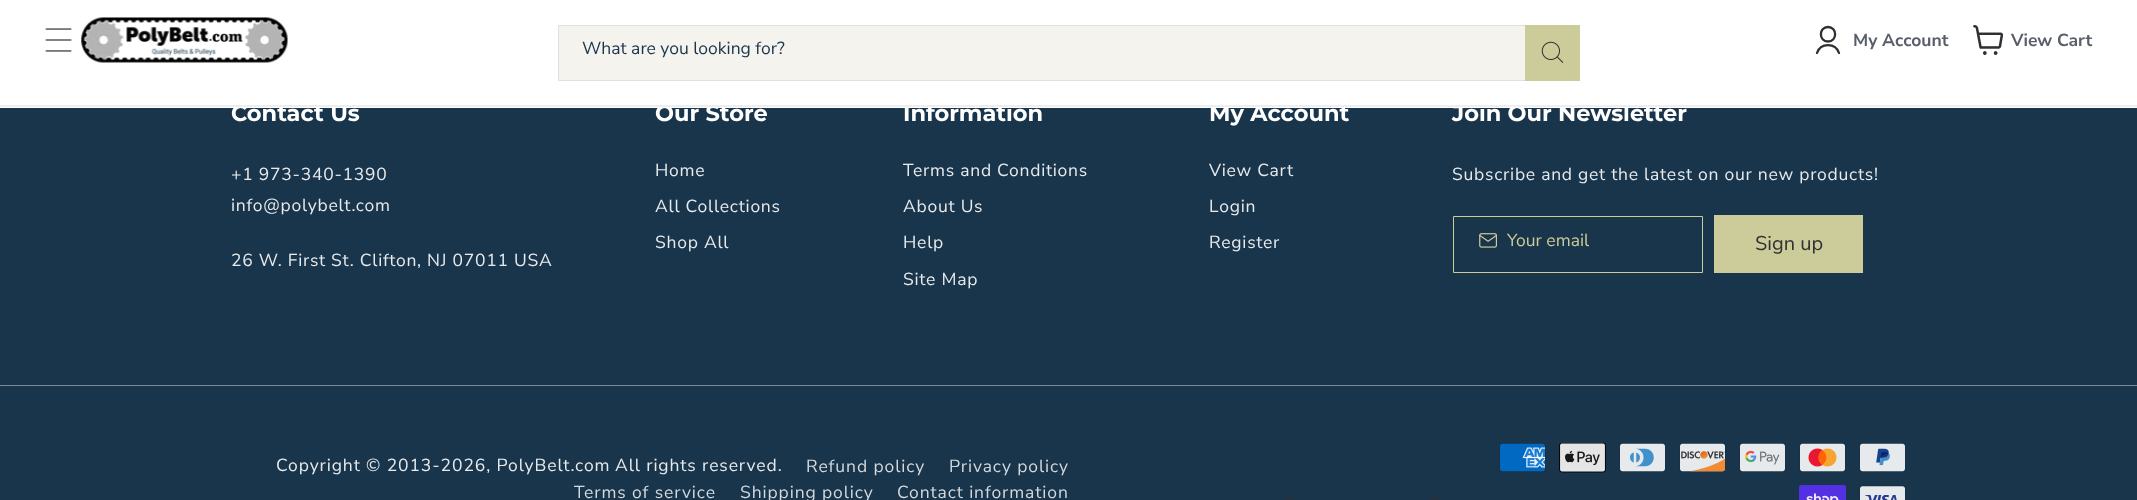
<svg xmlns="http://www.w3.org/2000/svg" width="2137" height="500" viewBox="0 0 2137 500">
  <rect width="100%" height="100%" fill="#19354b"/>
  <path d="M0 0h2137v108H0z" fill="#fff"/>
  <image x="45" y="28" width="27" height="24" href="img/1.png"/>
  <image x="81" y="17" width="207" height="46" href="img/2.png"/>
  <path d="M559 26h966v54H559z" fill="#f5f3ed"/>
  <path d="M558.5 25.5h1021v55H558.5z" fill="none" stroke="#e0e0e0"/>
  <path d="M1525 25h55v56H1525z" fill="#cccc9a"/>
  <image x="1541" y="41" width="23" height="22" href="img/3.png"/>
  <path d="M1828 41.5C1837.5 41.5 1837.5 27 1828 27C1818.5 27 1818.5 41.5 1828 41.5ZM1839 53C1835.5 42.5 1820.5 42.5 1817 53" fill="none" stroke="#303032" stroke-width="2.3" stroke-linecap="round" stroke-linejoin="round"/>
  <image x="1973" y="25" width="31" height="30" href="img/4.png"/>
  <path d="M1453.5 216.5h249v56H1453.5z" fill="none" stroke="#cccc9a"/>
  <image x="1479" y="233" width="18" height="15" href="img/5.png"/>
  <path d="M1714 215h149v58H1714z" fill="#cccc9a"/>
  <path d="M0 385h2137v1H0z" fill="#7d8b96"/>
  <image x="1283" y="495" width="12" height="5" href="img/6.png"/>
  <image x="1429" y="496" width="12" height="4" href="img/7.png"/>
  <image x="1499" y="443" width="47" height="29" href="img/8.png"/>
  <image x="1559" y="443" width="47" height="30" href="img/9.png"/>
  <image x="1619" y="443" width="47" height="29" href="img/10.png"/>
  <image x="1679" y="443" width="47" height="29" href="img/11.png"/>
  <image x="1739" y="443" width="47" height="29" href="img/12.png"/>
  <image x="1799" y="443" width="47" height="29" href="img/13.png"/>
  <image x="1859" y="443" width="47" height="29" href="img/14.png"/>
  <image x="1799" y="485" width="47" height="15" href="img/15.png"/>
  <image x="1859" y="485" width="47" height="15" href="img/16.png"/>
  <text x="582" y="54" font-family="Nunito Sans" font-size="17.5" fill="#19354b">What are you looking for?</text>
  <g font-family="Nunito Sans" font-size="17.5" font-weight="bold" fill="#595f69">
    <text x="1853" y="46">My Account</text>
    <text x="2011" y="46">View Cart</text>
  </g>
  <text x="231" y="121" font-family="Montserrat" font-size="22.5" font-weight="bold" fill="#fff">Contact Us</text>
  <g font-family="Nunito Sans" font-size="17.5" letter-spacing="0.75" fill="#e8ebed">
    <text x="231" y="180">+1 973-340-1390</text>
    <text x="231" y="211">info@polybelt.com</text>
    <text x="231" y="266">26 W. First St. Clifton, NJ 07011 USA</text>
  </g>
  <text x="655" y="121" font-family="Montserrat" font-size="22.5" font-weight="bold" fill="#fff">Our Store</text>
  <g font-family="Nunito Sans" font-size="17.5" letter-spacing="0.75" fill="#e8ebed">
    <text x="655" y="176">Home</text>
    <text x="655" y="212">All Collections</text>
    <text x="655" y="248">Shop All</text>
  </g>
  <text x="903" y="121" font-family="Montserrat" font-size="22.5" font-weight="bold" fill="#fff">Information</text>
  <g font-family="Nunito Sans" font-size="17.5" letter-spacing="0.75" fill="#e8ebed">
    <text x="903" y="176">Terms and Conditions</text>
    <text x="903" y="212">About Us</text>
    <text x="903" y="248">Help</text>
    <text x="903" y="285">Site Map</text>
  </g>
  <text x="1209" y="121" font-family="Montserrat" font-size="22.5" font-weight="bold" fill="#fff">My Account</text>
  <g font-family="Nunito Sans" font-size="17.5" letter-spacing="0.75" fill="#e8ebed">
    <text x="1209" y="176">View Cart</text>
    <text x="1209" y="212">Login</text>
    <text x="1209" y="248">Register</text>
  </g>
  <text x="1452" y="121" font-family="Montserrat" font-size="22.5" font-weight="bold" fill="#fff">Join Our Newsletter</text>
  <path d="M0 105h2137v2H0z" fill="#eeeeef"/>
  <text x="1452" y="180" font-family="Nunito Sans" font-size="17.5" letter-spacing="0.75" fill="#e8ebed">Subscribe and get the latest on our new products!</text>
  <text x="1507" y="246" font-family="Nunito Sans" font-size="17.5" fill="#cccc9a">Your email</text>
  <text x="1755" y="250" font-family="Nunito Sans" font-size="20" fill="#303032">Sign up</text>
  <g font-family="Nunito Sans" font-size="17.5" letter-spacing="0.9" fill="#e8ebed">
    <text x="276" y="471">Copyright © 2013-2026, PolyBelt.com</text>
    <text x="615" y="471">All rights reserved.</text>
  </g>
  <g font-family="Nunito Sans" font-size="17.5" letter-spacing="0.9" fill="#d3d9dd">
    <text x="806" y="472">Refund policy</text>
    <text x="949" y="472">Privacy policy</text>
    <text x="574" y="498">Terms of service</text>
    <text x="740" y="498">Shipping policy</text>
    <text x="897" y="498">Contact information</text>
  </g>
</svg>
